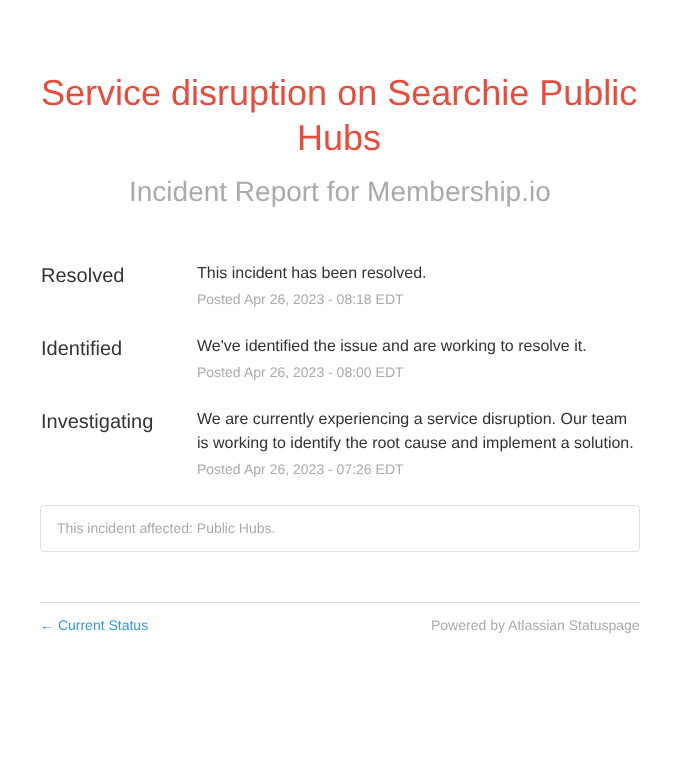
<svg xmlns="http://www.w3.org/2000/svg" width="679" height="776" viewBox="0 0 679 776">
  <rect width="100%" height="100%" fill="#fff"/>
  <rect x="40.5" y="505.5" width="599" height="46" rx="3.5" fill="none" stroke="#e0e0e0"/>
  <path d="M40 602h600v1H40z" fill="#e0e0e0"/>
  <g font-family="Liberation Sans" font-size="36" fill="#e74c3c">
    <text x="41" y="105">Service disruption on Searchie Public</text>
    <text x="297" y="150">Hubs</text>
  </g>
  <text x="129" y="201" font-family="Liberation Sans" font-size="28" fill="#aaa">Incident Report for Membership.io</text>
  <text x="41" y="282" font-family="Liberation Sans" font-size="20" fill="#333">Resolved</text>
  <text x="197" y="278" font-family="Liberation Sans" font-size="16" fill="#333">This incident has been resolved.</text>
  <g font-family="Liberation Sans" font-size="14" fill="#aaa">
    <text x="197" y="304">Posted</text>
    <text x="244" y="304">Apr 26, 2023 - 08:18 EDT</text>
  </g>
  <text x="41" y="355" font-family="Liberation Sans" font-size="20" fill="#333">Identified</text>
  <text x="197" y="351" font-family="Liberation Sans" font-size="16" fill="#333">We've identified the issue and are working to resolve it.</text>
  <g font-family="Liberation Sans" font-size="14" fill="#aaa">
    <text x="197" y="377">Posted</text>
    <text x="244" y="377">Apr 26, 2023 - 08:00 EDT</text>
  </g>
  <text x="41" y="428" font-family="Liberation Sans" font-size="20" fill="#333">Investigating</text>
  <g font-family="Liberation Sans" font-size="16" fill="#333">
    <text x="197" y="424">We are currently experiencing a service disruption. Our team</text>
    <text x="197" y="448">is working to identify the root cause and implement a solution.</text>
  </g>
  <g font-family="Liberation Sans" font-size="14" fill="#aaa">
    <text x="197" y="474">Posted</text>
    <text x="244" y="474">Apr 26, 2023 - 07:26 EDT</text>
    <text x="57" y="533">This incident affected: Public Hubs.</text>
  </g>
  <text x="40" y="630" font-family="Liberation Sans" font-size="14" fill="#3498db">← Current Status</text>
  <text x="431" y="630" font-family="Liberation Sans" font-size="14" fill="#aaa">Powered by Atlassian Statuspage</text>
</svg>
